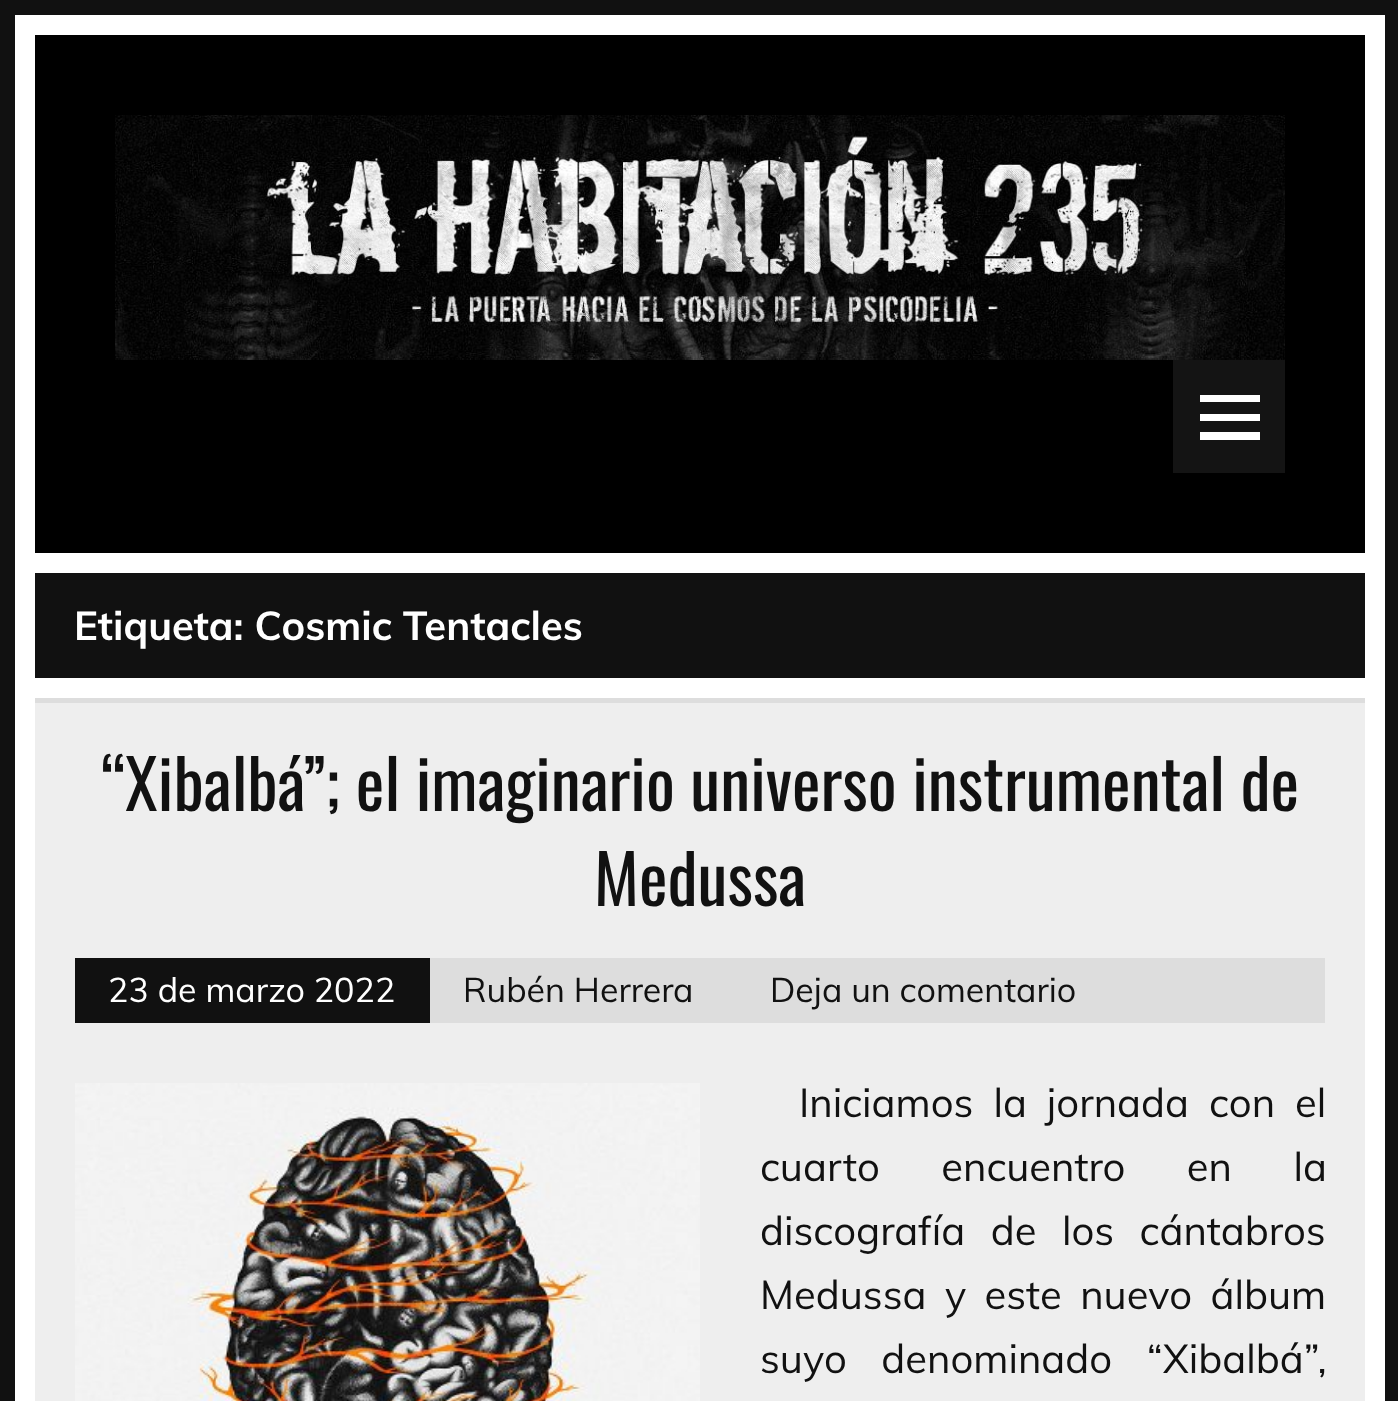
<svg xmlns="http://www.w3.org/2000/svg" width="1398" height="1401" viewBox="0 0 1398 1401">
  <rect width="100%" height="100%" fill="#111"/>
  <path d="M15 15h1370v1386H15z" fill="#fff"/>
  <path d="M35 35h1330v518H35z" fill="#000"/>
  <image x="115" y="115" width="1170" height="245" href="img/1.png"/>
  <path d="M1173 360h112v113H1173z" fill="#141414"/>
  <path d="M1200 440V432H1260V440ZM1200 395H1260V402H1200ZM1200 421V414H1260V421Z" fill="#fff"/>
  <path d="M35 573h1330v105H35z" fill="#111"/>
  <path d="M35 703h1330v698H35z" fill="#eee"/>
  <path d="M35 698h1330v5H35z" fill="#ddd"/>
  <path d="M430 958h895v65H430z" fill="#ddd"/>
  <path d="M75 958h355v65H75z" fill="#111"/>
  <image x="75" y="1083" width="625" height="318" href="img/2.png"/>
  <text x="74" y="640" font-family="Muli" font-size="40" font-weight="bold" fill="#fff">Etiqueta: Cosmic Tentacles</text>
  <g font-family="Oswald" font-size="68" fill="#111">
    <text x="101" y="811">“Xibalbá”; el imaginario universo instrumental de</text>
    <text x="594" y="906">Medussa</text>
  </g>
  <text x="108" y="1002" font-family="Muli" font-size="34" fill="#fff">23 de marzo 2022</text>
  <g font-family="Muli" font-size="34" fill="#111">
    <text x="463" y="1002">Rubén Herrera</text>
    <text x="770" y="1002">Deja un comentario</text>
  </g>
  <g font-family="Muli" font-size="40" fill="#111">
    <text x="799" y="1117" word-spacing="9.5">Iniciamos la jornada con el</text>
    <text x="760" y="1181" word-spacing="51">cuarto encuentro en la</text>
    <text x="760" y="1245" word-spacing="15">discografía de los cántabros</text>
    <text x="760" y="1309" word-spacing="8">Medussa y este nuevo álbum</text>
    <text x="760" y="1373" word-spacing="24">suyo denominado “Xibalbá”,</text>
  </g>
</svg>
